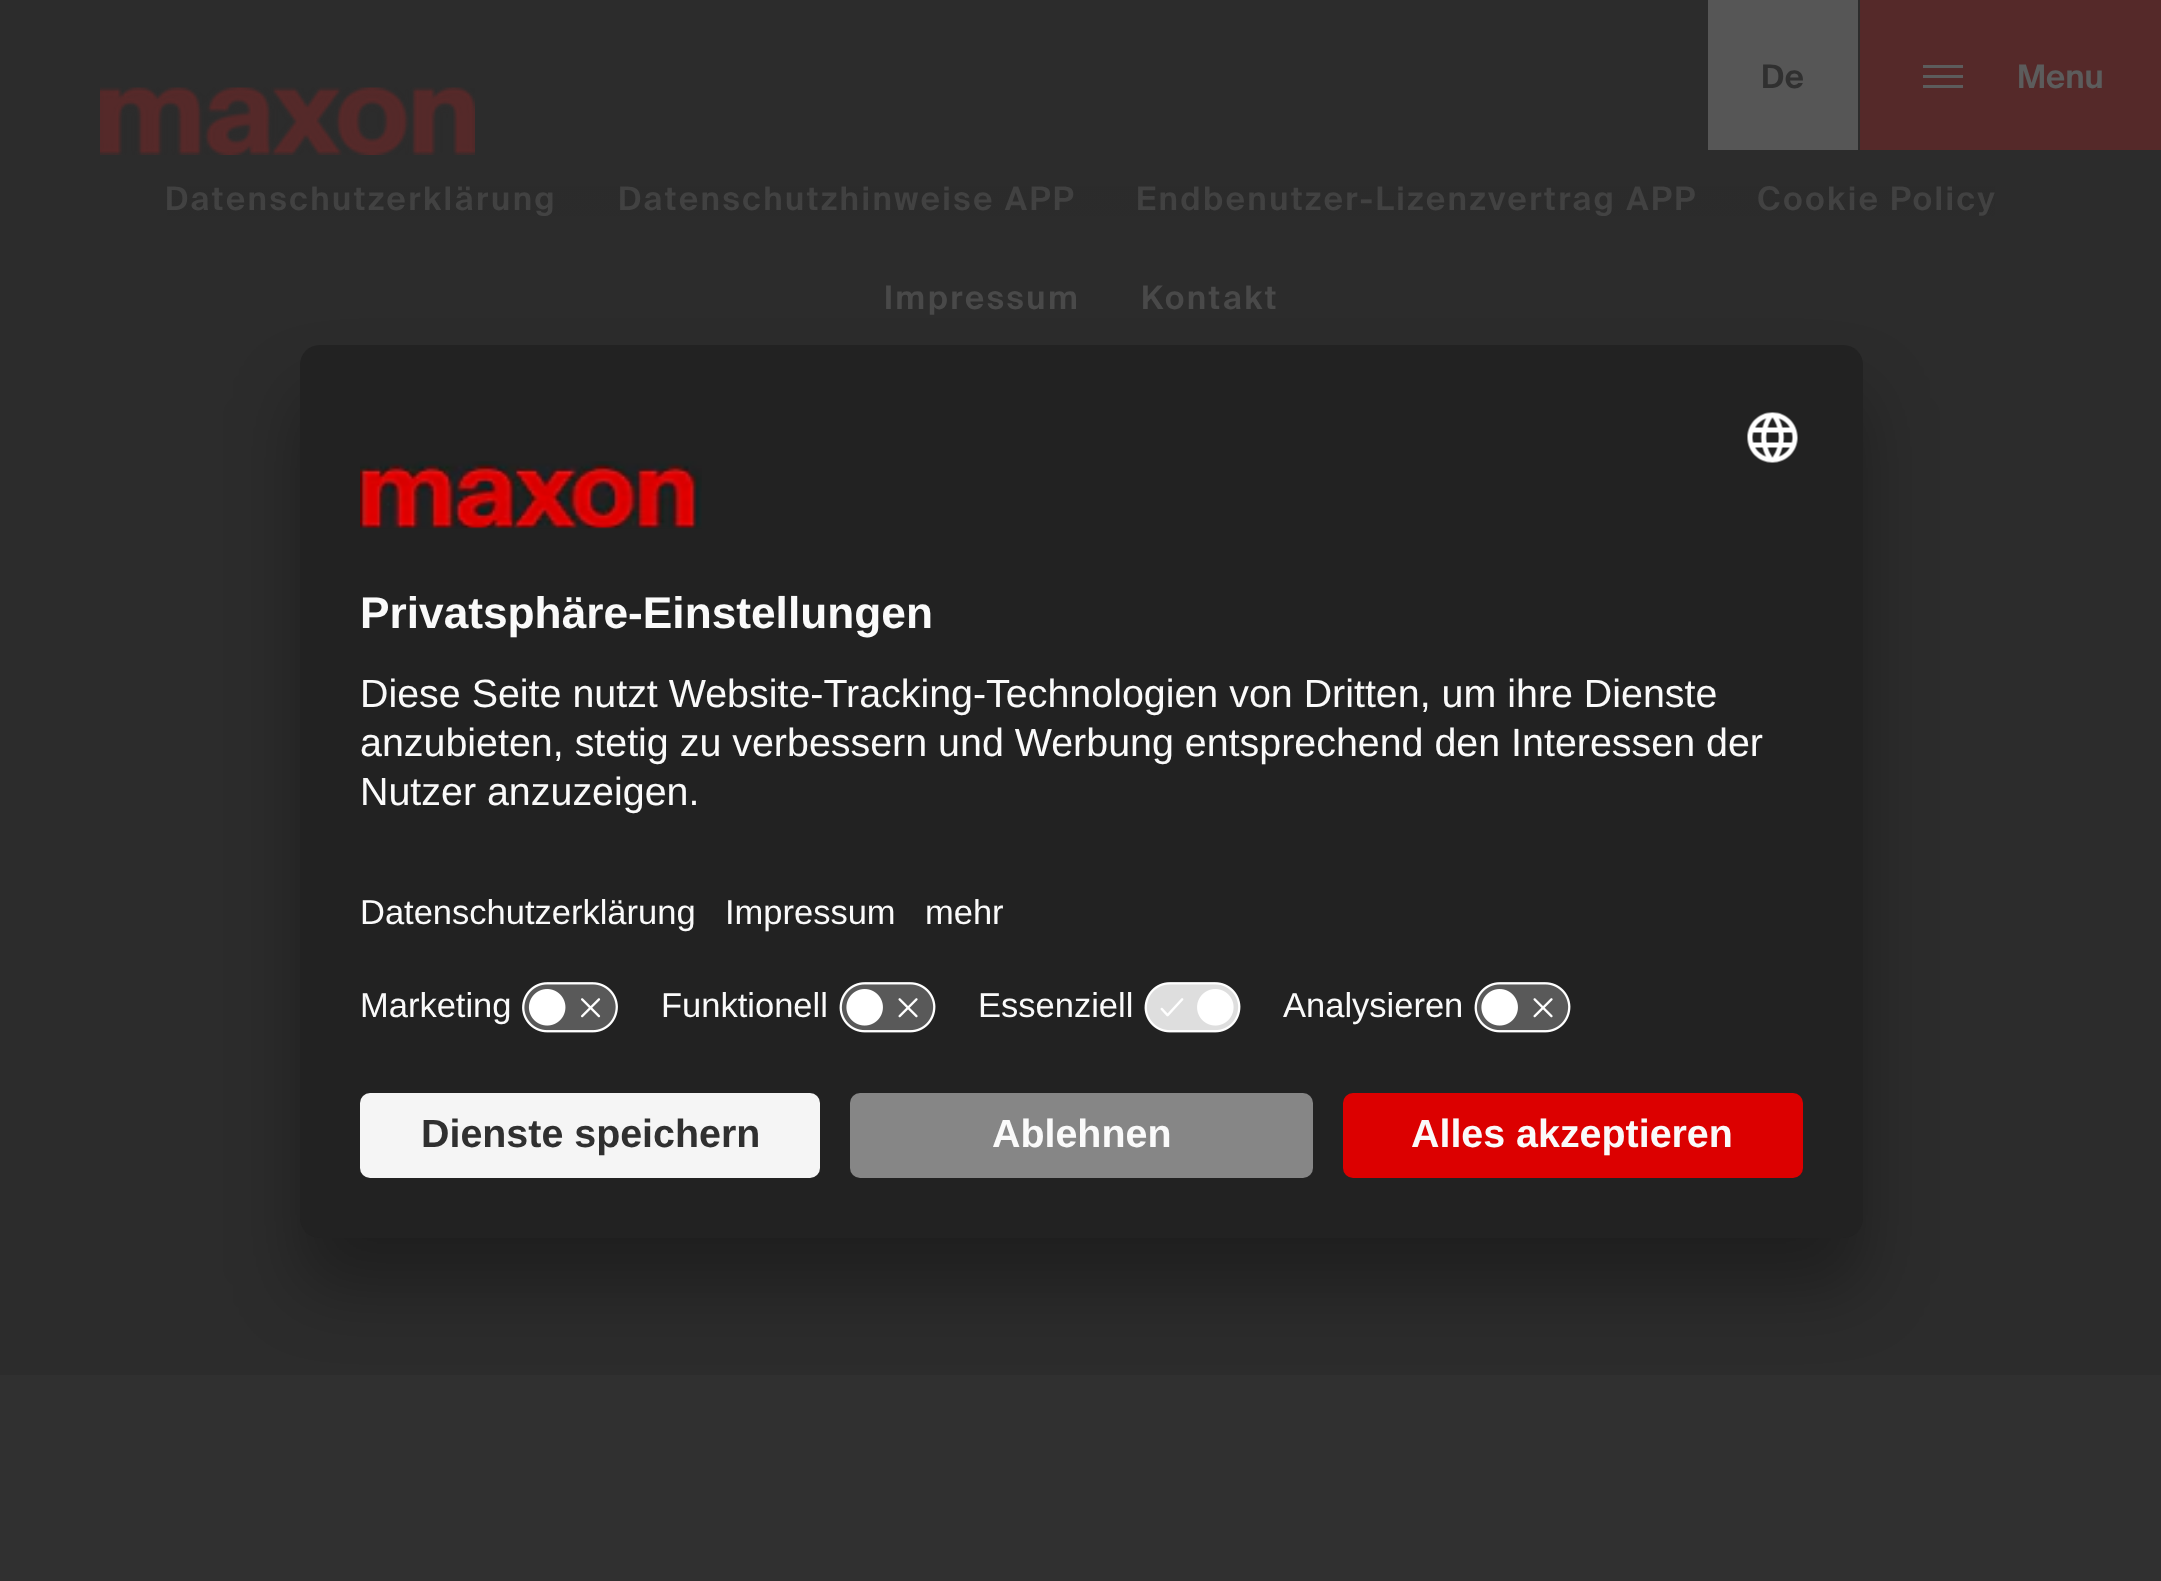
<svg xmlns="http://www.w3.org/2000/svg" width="2161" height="1581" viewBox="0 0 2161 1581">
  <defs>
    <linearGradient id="g1" gradientUnits="userSpaceOnUse" x1="1081" y1="0" x2="1081" y2="325"><stop offset="0" stop-color="#292929" stop-opacity="0.6"/><stop offset="1" stop-color="#292929" stop-opacity="0"/></linearGradient>
  </defs>
  <rect width="100%" height="100%" fill="#303030"/>
  <path d="M0 0h2161v1375H0z" fill="#2c2c2c"/>
  <path d="M1708 0h150v150H1708z" fill="#5b5b5be6"/>
  <path d="M1860 0h301v150H1860z" fill="#552929"/>
  <path d="M1923 65h40v3H1923z" fill="#5c5c5c"/>
  <path d="M1923 75h40v3H1923z" fill="#5c5c5c"/>
  <path d="M1923 85h40v3H1923z" fill="#5c5c5c"/>
  <image x="100" y="87" width="375" height="68" href="img/1.png"/>
  <rect x="300" y="395" width="1563" height="893" rx="20" fill="#0000004d" filter="blur(35px)"/>
  <rect x="300" y="345" width="1563" height="893" rx="20" fill="#222"/>
  <image x="1747" y="412" width="51" height="51" href="img/2.png"/>
  <image x="360" y="461" width="342" height="68" href="img/3.png"/>
  <image x="522" y="982" width="96" height="51" href="img/4.png"/>
  <image x="839" y="982" width="97" height="51" href="img/5.png"/>
  <image x="1144" y="982" width="97" height="51" href="img/6.png"/>
  <image x="1474" y="982" width="97" height="51" href="img/5.png"/>
  <rect x="360" y="1093" width="460" height="85" rx="10" fill="#f5f5f5"/>
  <rect x="850" y="1093" width="463" height="85" rx="10" fill="#868686"/>
  <rect x="1343" y="1093" width="460" height="85" rx="10" fill="#dc0000"/>
  <text x="1761" y="88" font-family="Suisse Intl" font-size="32.5" font-weight="600" fill="#303030">De</text>
  <text x="2017" y="88" font-family="Suisse Intl" font-size="32.5" font-weight="600" fill="#5c5c5c">Menu</text>
  <g font-family="Suisse Intl" font-size="32.5" font-weight="600" letter-spacing="2.5" fill="#494949">
    <text x="165" y="210">Datenschutzerklärung</text>
    <text x="618" y="210">Datenschutzhinweise APP</text>
    <text x="1136" y="210">Endbenutzer-Lizenzvertrag APP</text>
    <text x="1757" y="210">Cookie Policy</text>
  </g>
  <path d="M167 186h1828v30H167z" fill="url(#g1)"/>
  <g font-family="Suisse Intl" font-size="32.5" font-weight="600" letter-spacing="2.5" fill="#494949">
    <text x="884" y="309">Impressum</text>
    <text x="1141" y="309">Kontakt</text>
  </g>
  <text x="360" y="628" font-family="Liberation Sans" font-size="44.25" font-weight="bold" fill="#fafafa">Privatsphäre-Einstellungen</text>
  <g font-family="Liberation Sans" font-size="39.4" fill="#fafafa">
    <text x="360" y="707">Diese Seite nutzt Website-Tracking-Technologien von Dritten, um ihre Dienste</text>
    <text x="360" y="756">anzubieten, stetig zu verbessern und Werbung entsprechend den Interessen der</text>
    <text x="360" y="805">Nutzer anzuzeigen.</text>
  </g>
  <g font-family="Liberation Sans" font-size="34.5" fill="#fafafa">
    <text x="360" y="924">Datenschutzerklärung</text>
    <text x="725" y="924">Impressum</text>
    <text x="925" y="924">mehr</text>
    <text x="360" y="1017">Marketing</text>
    <text x="661" y="1017">Funktionell</text>
    <text x="978" y="1017">Essenziell</text>
    <text x="1283" y="1017">Analysieren</text>
  </g>
  <text x="421" y="1147" font-family="Liberation Sans" font-size="39.4" font-weight="bold" fill="#303030">Dienste speichern</text>
  <g font-family="Liberation Sans" font-size="39.4" font-weight="bold" fill="#fafafa">
    <text x="992" y="1147">Ablehnen</text>
    <text x="1411" y="1147">Alles akzeptieren</text>
  </g>
</svg>
